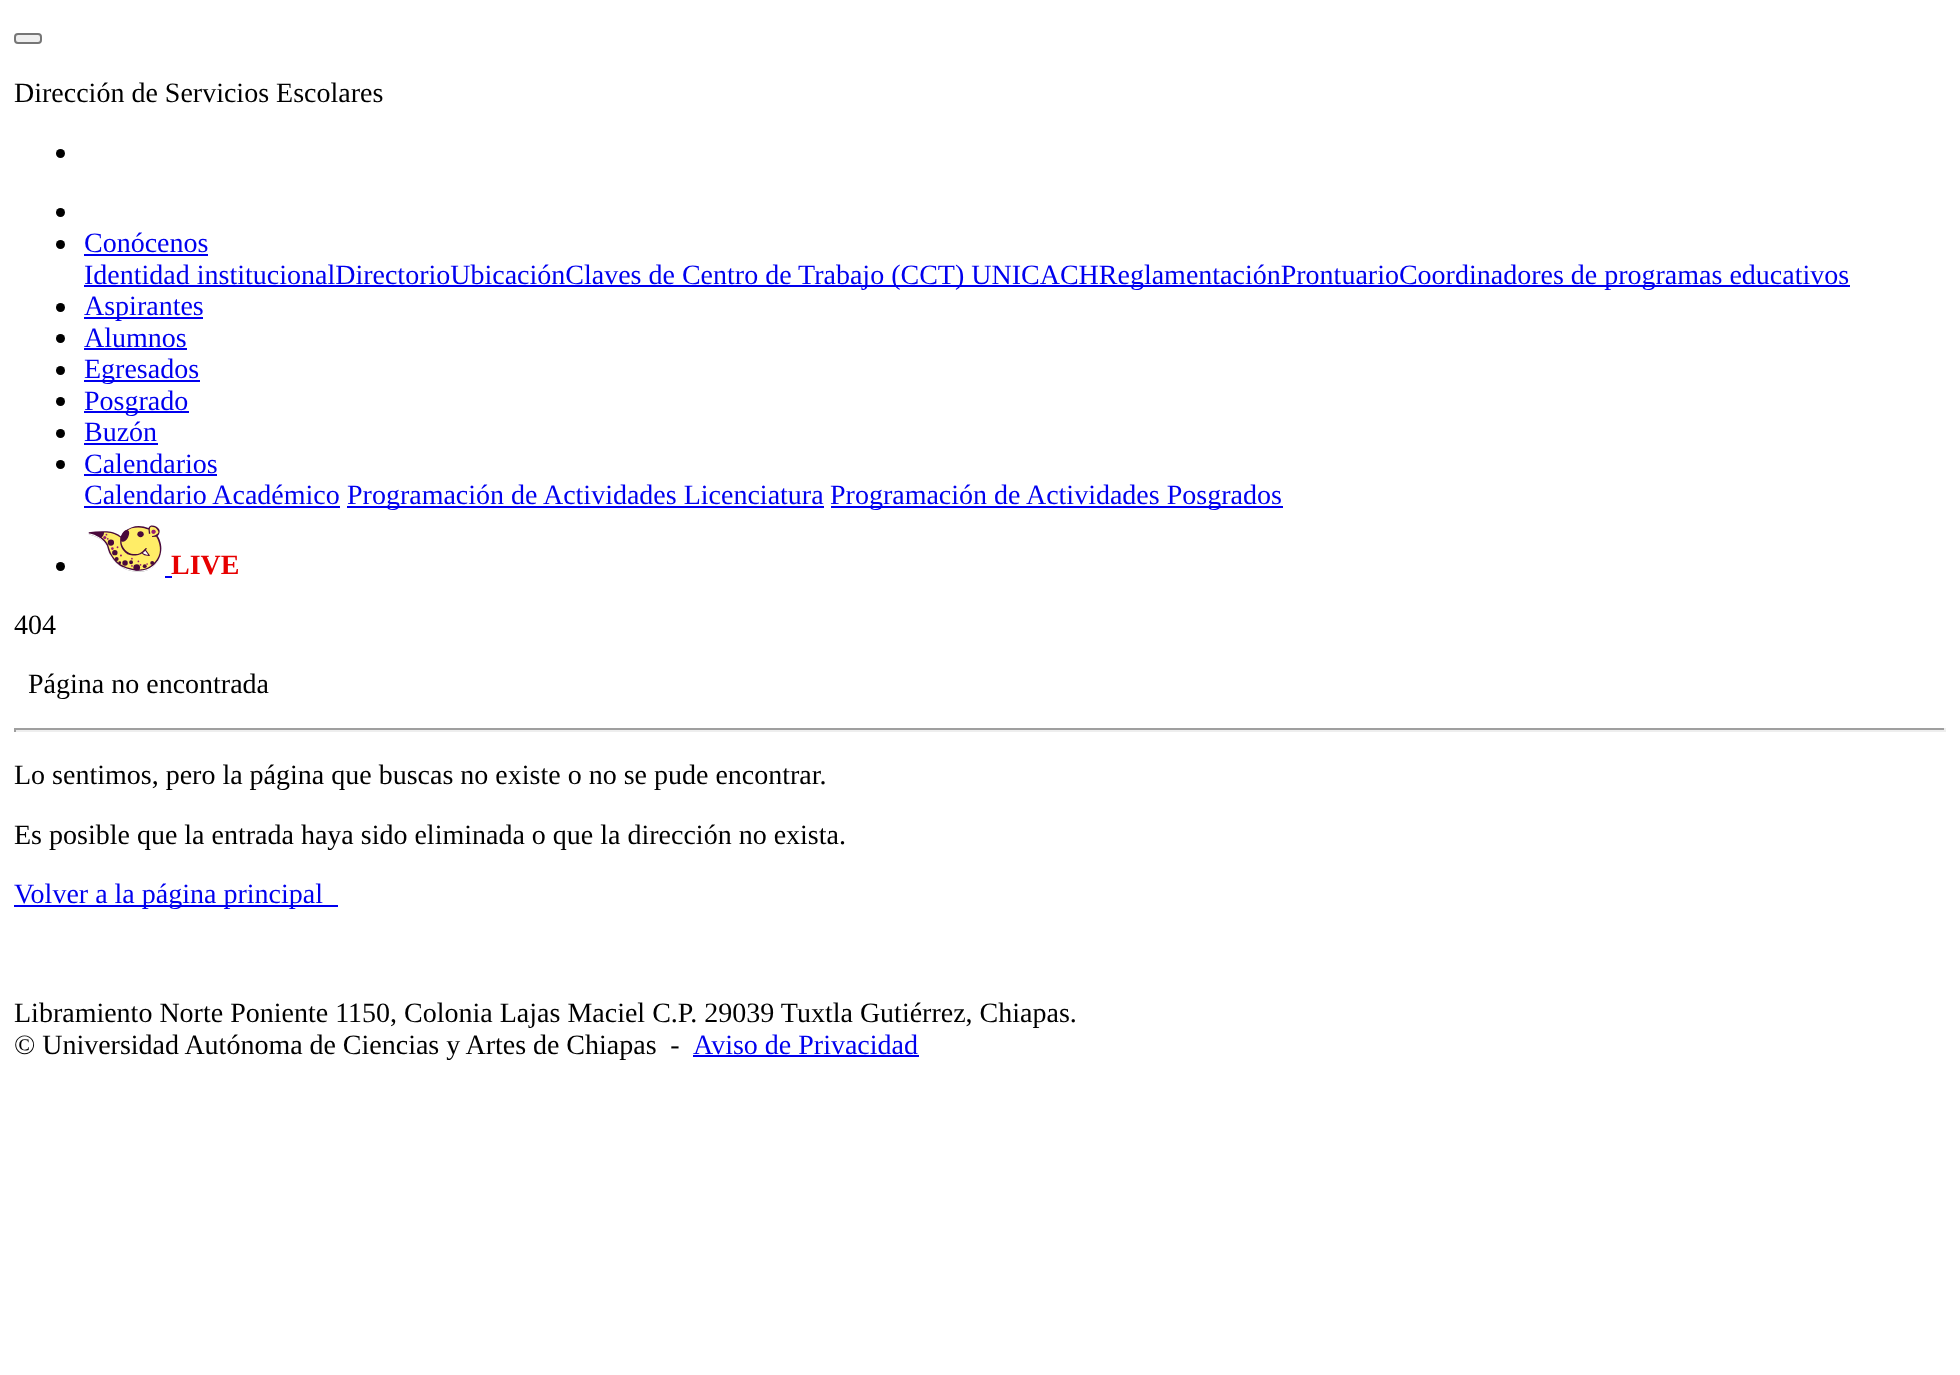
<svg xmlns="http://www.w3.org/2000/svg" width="1960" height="1375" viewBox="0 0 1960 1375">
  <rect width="100%" height="100%" fill="#fff"/>
  <rect x="15" y="34" width="26" height="9" rx="3" fill="#efefef" stroke="#767676" stroke-width="2"/>
  <circle cx="60.5" cy="153.5" r="4.5" fill="#000"/>
  <circle cx="60.5" cy="212.5" r="4.5" fill="#000"/>
  <circle cx="60.5" cy="244.5" r="4.5" fill="#000"/>
  <path d="M84 254h124v2H84z" fill="#00e"/>
  <path d="M84 285h1766v2H84z" fill="#00e"/>
  <circle cx="60.5" cy="307.5" r="4.5" fill="#000"/>
  <path d="M84 317h119v2H84z" fill="#00e"/>
  <circle cx="60.5" cy="338.5" r="4.5" fill="#000"/>
  <path d="M84 348h103v2H84z" fill="#00e"/>
  <circle cx="60.5" cy="370.5" r="4.5" fill="#000"/>
  <path d="M84 380h116v2H84z" fill="#00e"/>
  <circle cx="60.5" cy="401.5" r="4.5" fill="#000"/>
  <path d="M84 411h105v2H84z" fill="#00e"/>
  <circle cx="60.5" cy="433.5" r="4.5" fill="#000"/>
  <path d="M84 443h74v2H84z" fill="#00e"/>
  <circle cx="60.5" cy="464.5" r="4.5" fill="#000"/>
  <path d="M84 474h133v2H84z" fill="#00e"/>
  <path d="M84 506h256v2H84z" fill="#00e"/>
  <path d="M347 506h477v2H347z" fill="#00e"/>
  <path d="M831 506h452v2H831z" fill="#00e"/>
  <circle cx="60.5" cy="566.5" r="4.5" fill="#000"/>
  <image x="88" y="525" width="74" height="47" href="img/1.png"/>
  <path d="M165 576h7v2H165z" fill="#00e"/>
  <path d="M14 728h1932v2H14z" fill="#9f9f9f"/>
  <path d="M1944 728h2v4H1944z" fill="#eee"/>
  <path d="M14 730h1932v2H14z" fill="#eee"/>
  <path d="M14 728h2v4H14z" fill="#9f9f9f"/>
  <path d="M14 905h324v2H14z" fill="#00e"/>
  <path d="M693 1055h226v2H693z" fill="#00e"/>
  <text x="14" y="102" font-family="Liberation Serif" font-size="28" fill="#000">Dirección de Servicios Escolares</text>
  <g font-family="Liberation Serif" font-size="28" fill="#00e">
    <text x="84" y="252">Conócenos</text>
    <text x="84" y="284">Identidad institucionalDirectorioUbicaciónClaves de Centro de Trabajo (CCT) UNICACHReglamentaciónProntuarioCoordinadores de programas educativos</text>
    <text x="84" y="315">Aspirantes</text>
    <text x="84" y="347">Alumnos</text>
    <text x="84" y="378">Egresados</text>
    <text x="84" y="410">Posgrado</text>
    <text x="84" y="441">Buzón</text>
    <text x="84" y="473">Calendarios</text>
    <text x="84" y="504">Calendario Académico</text>
    <text x="347" y="504">Programación de Actividades Licenciatura</text>
    <text x="830" y="504">Programación de Actividades Posgrados</text>
  </g>
  <text x="171" y="574" font-family="Liberation Serif" font-size="28" font-weight="bold" fill="#e70000">LIVE</text>
  <g font-family="Liberation Serif" font-size="28" fill="#000">
    <text x="14" y="634">404</text>
    <text x="28" y="693">Página no encontrada</text>
    <text x="14" y="784">Lo sentimos, pero la página que buscas no existe o no se pude encontrar.</text>
    <text x="14" y="844">Es posible que la entrada haya sido eliminada o que la dirección no exista.</text>
  </g>
  <text x="14" y="903" font-family="Liberation Serif" font-size="28" fill="#00e">Volver a la página principal</text>
  <g font-family="Liberation Serif" font-size="28" fill="#000">
    <text x="14" y="1022">Libramiento Norte Poniente 1150, Colonia Lajas Maciel C.P. 29039 Tuxtla Gutiérrez, Chiapas.</text>
    <text x="14" y="1054" word-spacing="-0.1" xml:space="preserve">© Universidad Autónoma de Ciencias y Artes de Chiapas  -</text>
  </g>
  <text x="693" y="1054" font-family="Liberation Serif" font-size="28" fill="#00e">Aviso de Privacidad</text>
</svg>
